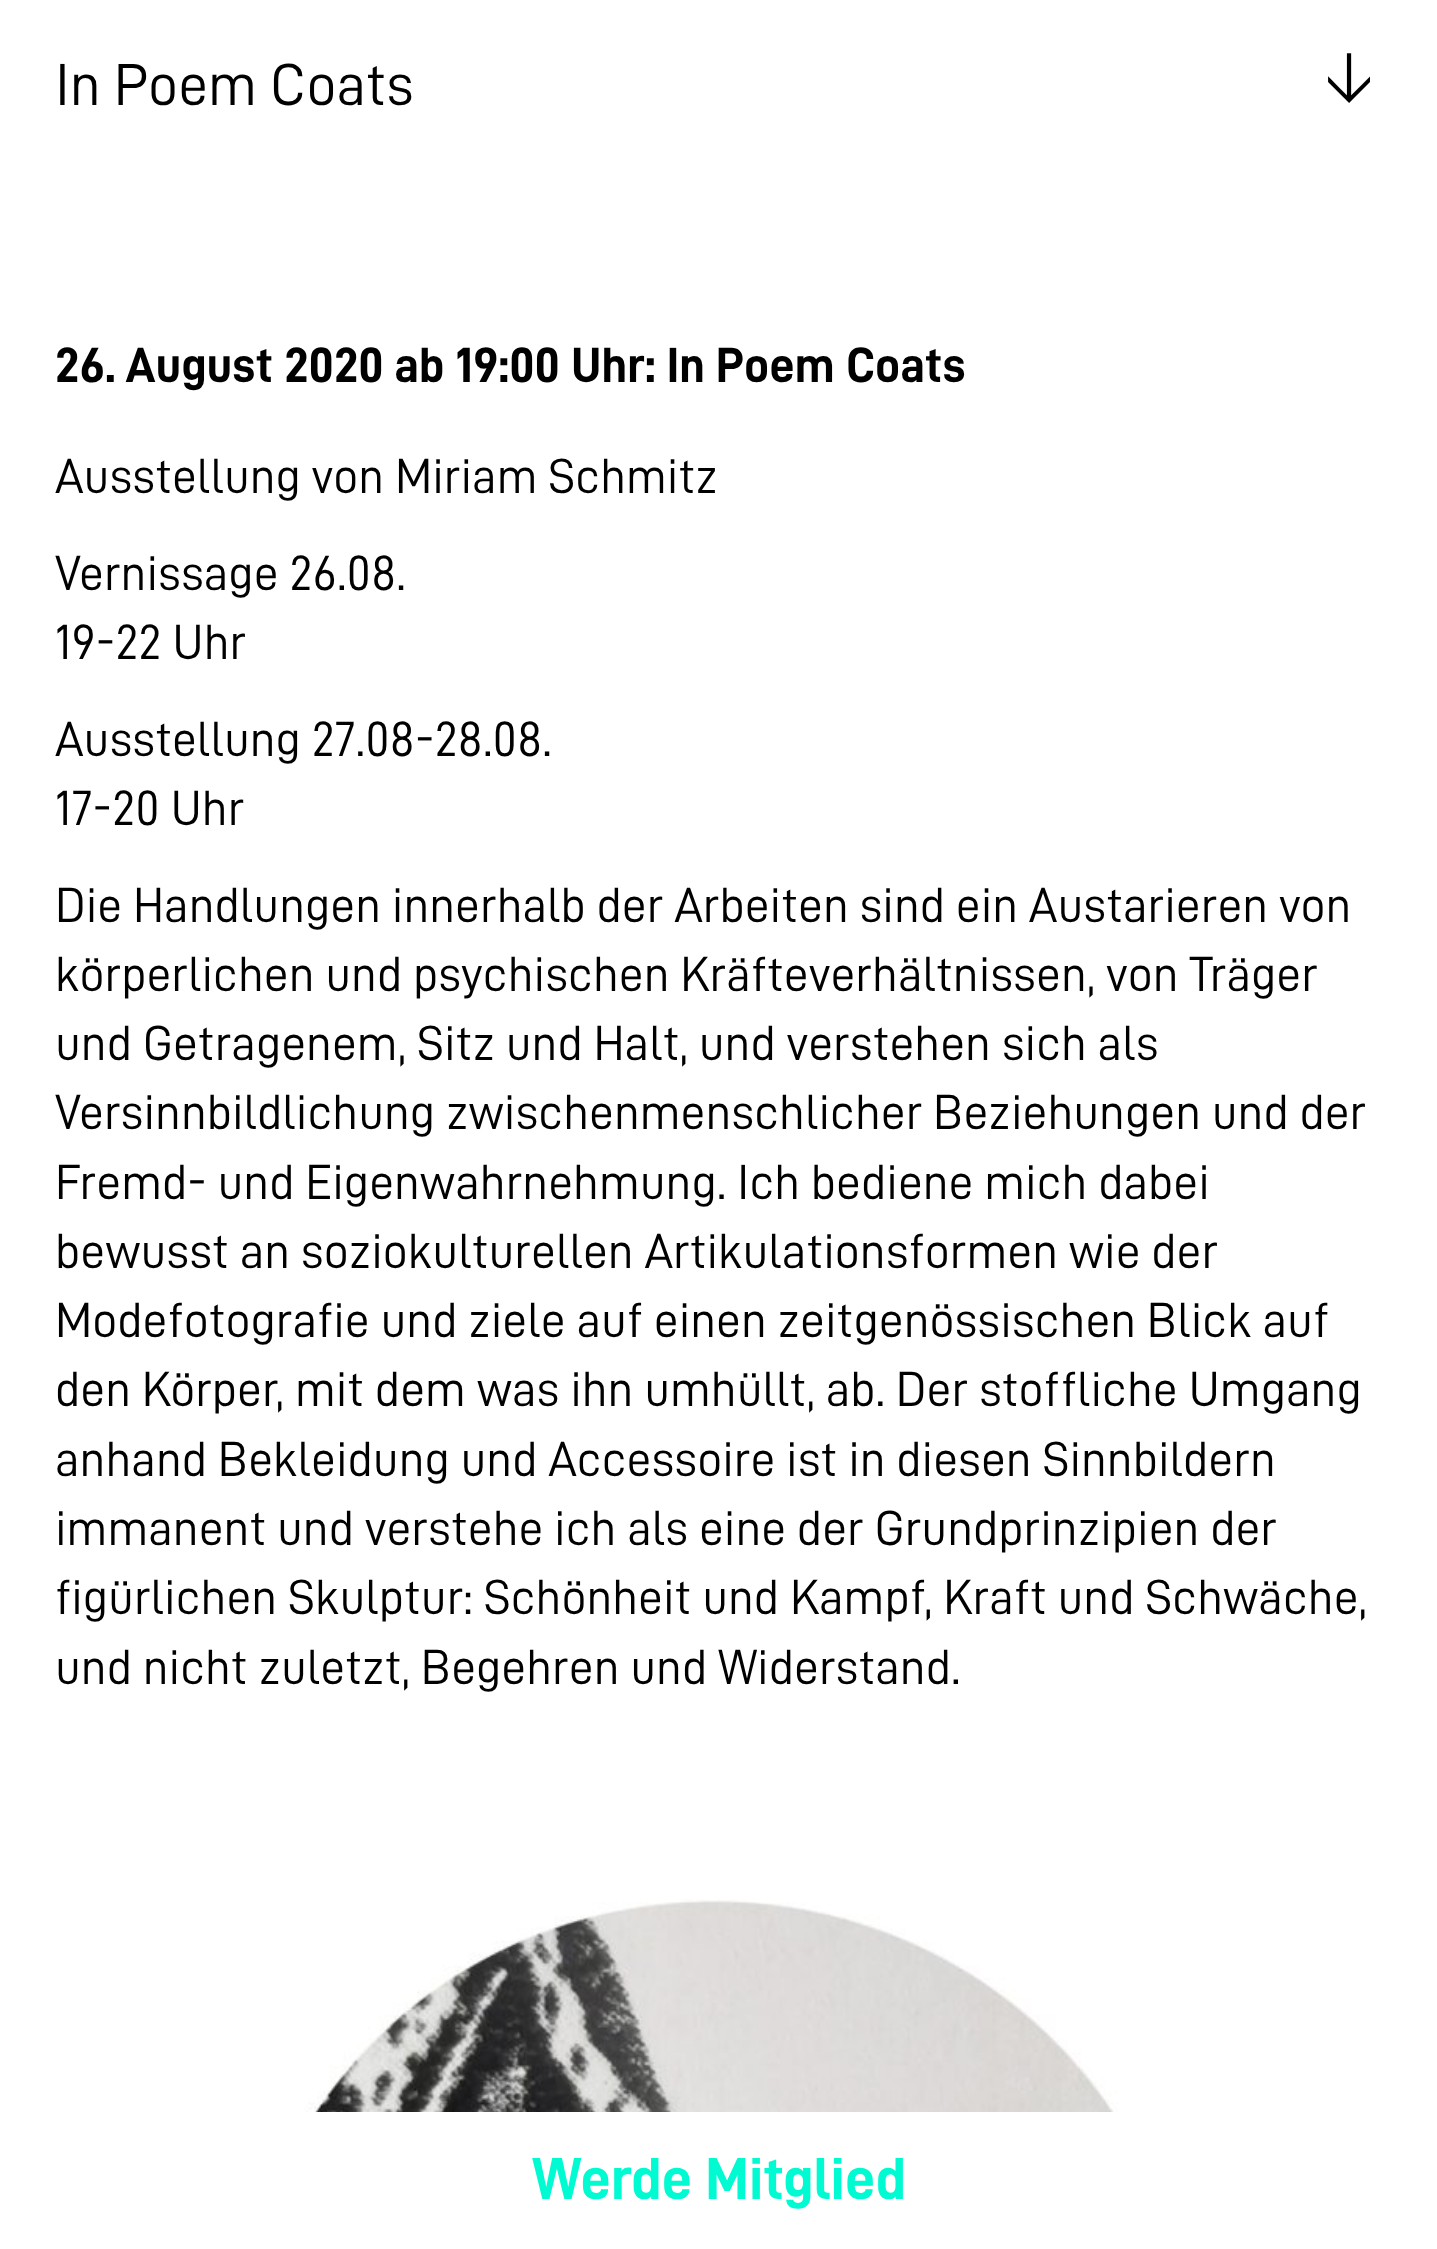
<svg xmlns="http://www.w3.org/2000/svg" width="1437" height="2249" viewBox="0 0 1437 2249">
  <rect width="100%" height="100%" fill="#fff"/>
  <image x="254" y="1899" width="921" height="213" href="img/1.png"/>
  <g font-family="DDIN" font-size="59.5" fill="#000">
    <text x="55" y="105">In Poem Coats</text>
    <text x="1328" y="49" transform="rotate(90 1328 49)">→</text>
  </g>
  <text x="55" y="382" font-family="DDIN" font-size="49.5" font-weight="bold" fill="#000">26. August 2020 ab 19:00 Uhr: In Poem Coats</text>
  <g font-family="DDIN" font-size="49.5" fill="#000">
    <text x="55" y="493">Ausstellung von Miriam Schmitz</text>
    <text x="55" y="590">Vernissage 26.08.</text>
    <text x="55" y="659">19-22 Uhr</text>
    <text x="55" y="756">Ausstellung 27.08-28.08.</text>
    <text x="55" y="825">17-20 Uhr</text>
    <text x="55" y="922">Die Handlungen innerhalb der Arbeiten sind ein Austarieren von</text>
    <text x="55" y="991">körperlichen und psychischen Kräfteverhältnissen, von Träger</text>
    <text x="55" y="1060">und Getragenem, Sitz und Halt, und verstehen sich als</text>
    <text x="55" y="1129">Versinnbildlichung zwischenmenschlicher Beziehungen und der</text>
    <text x="55" y="1199">Fremd- und Eigenwahrnehmung. Ich bediene mich dabei</text>
    <text x="55" y="1268">bewusst an soziokulturellen Artikulationsformen wie der</text>
    <text x="55" y="1337">Modefotografie und ziele auf einen zeitgenössischen Blick auf</text>
    <text x="55" y="1406">den Körper, mit dem was ihn umhüllt, ab. Der stoffliche Umgang</text>
    <text x="55" y="1476">anhand Bekleidung und Accessoire ist in diesen Sinnbildern</text>
    <text x="55" y="1545">immanent und verstehe ich als eine der Grundprinzipien der</text>
    <text x="55" y="1614">figürlichen Skulptur: Schönheit und Kampf, Kraft und Schwäche,</text>
    <text x="55" y="1684">und nicht zuletzt, Begehren und Widerstand.</text>
  </g>
  <text x="532" y="2199" font-family="DDIN" font-size="59.5" font-weight="bold" fill="#00fad2">Werde Mitglied</text>
</svg>
